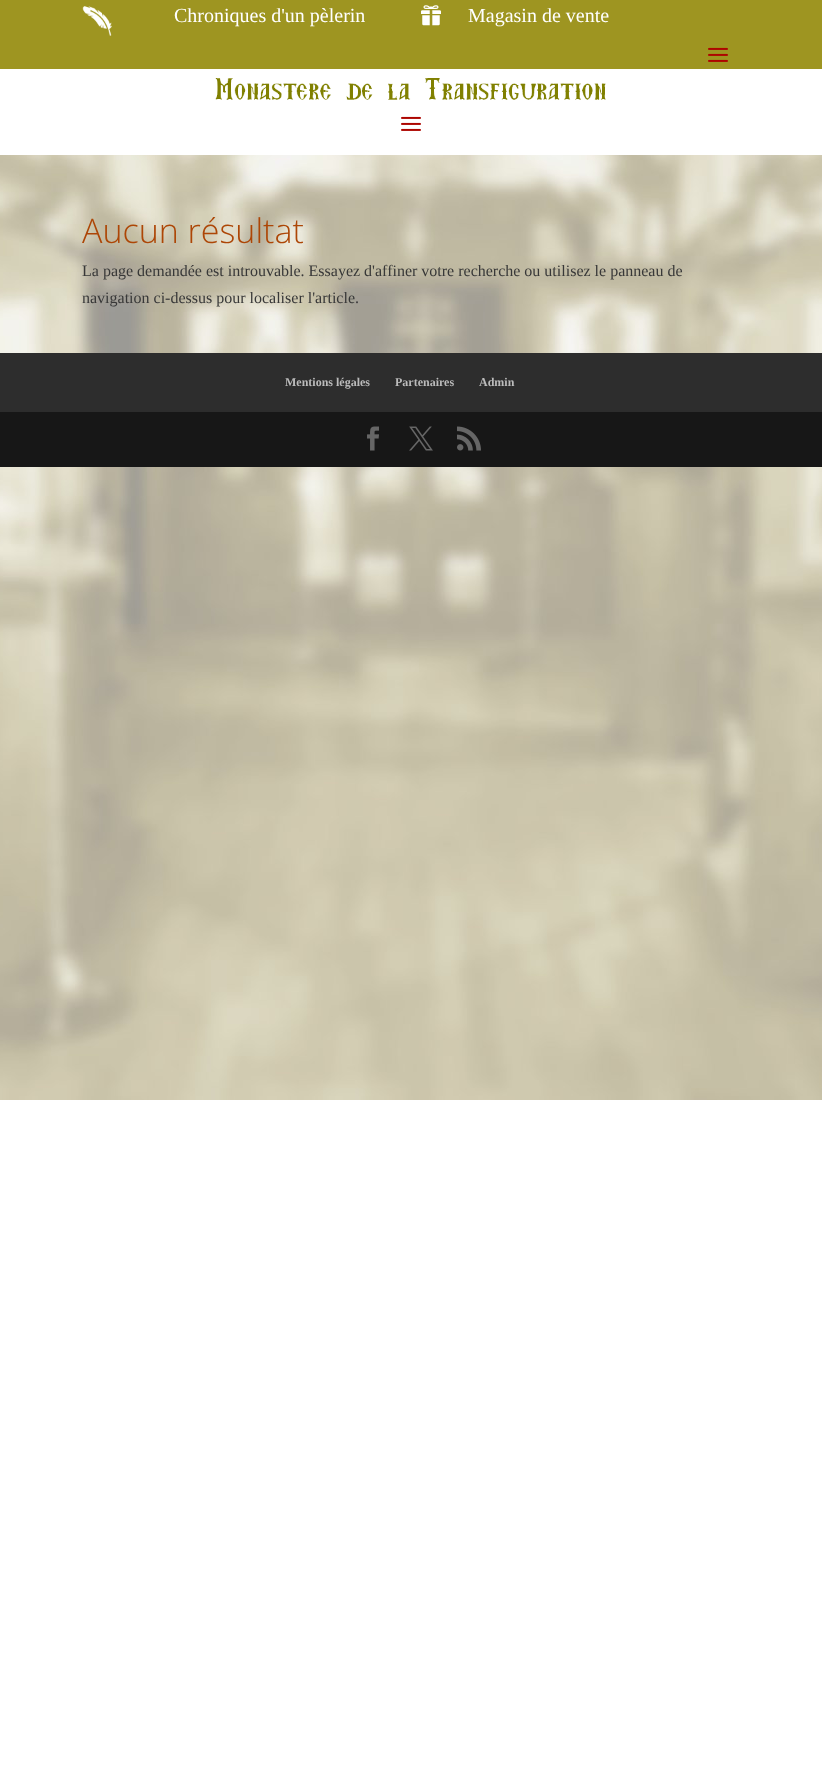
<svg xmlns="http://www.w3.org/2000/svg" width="822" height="1791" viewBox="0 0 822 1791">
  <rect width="100%" height="100%" fill="#fff"/>
  <image x="0" y="155" width="822" height="945" href="img/1.png"/>
  <path d="M0 0h822v69H0z" fill="#9e9521"/>
  <image x="82" y="6" width="30" height="30" href="img/2.png"/>
  <image x="421" y="5" width="20" height="21" href="img/3.png"/>
  <image x="708" y="47" width="20" height="15" href="img/4.png"/>
  <image x="215" y="78" width="391" height="22" href="img/5.png"/>
  <image x="401" y="116" width="20" height="15" href="img/6.png"/>
  <path d="M0 353h822v59H0z" fill="#2d2d2d"/>
  <path d="M0 412h822v55H0z" fill="#171717"/>
  <image x="367" y="426" width="12" height="25" href="img/7.png"/>
  <image x="409" y="426" width="24" height="25" href="img/8.png"/>
  <image x="457" y="426" width="24" height="25" href="img/9.png"/>
  <g font-family="Liberation Serif" font-size="20" fill="#fff">
    <text x="174" y="22">Chroniques d'un pèlerin</text>
    <text x="468" y="22">Magasin de vente</text>
  </g>
  <text x="82" y="243" font-family="Open Sans" font-size="34" font-weight="300" fill="#ad4606">Aucun résultat</text>
  <g font-family="Liberation Serif" font-size="16" fill="#383838">
    <text x="82" y="276">La page demandée est introuvable. Essayez d'affiner votre recherche ou utilisez le panneau de</text>
    <text x="82" y="303">navigation ci-dessus pour localiser l'article.</text>
  </g>
  <g font-family="Liberation Serif" font-size="12" font-weight="bold" fill="#bbb">
    <text x="285" y="386">Mentions légales</text>
    <text x="395" y="386">Partenaires</text>
    <text x="479" y="386">Admin</text>
  </g>
</svg>
